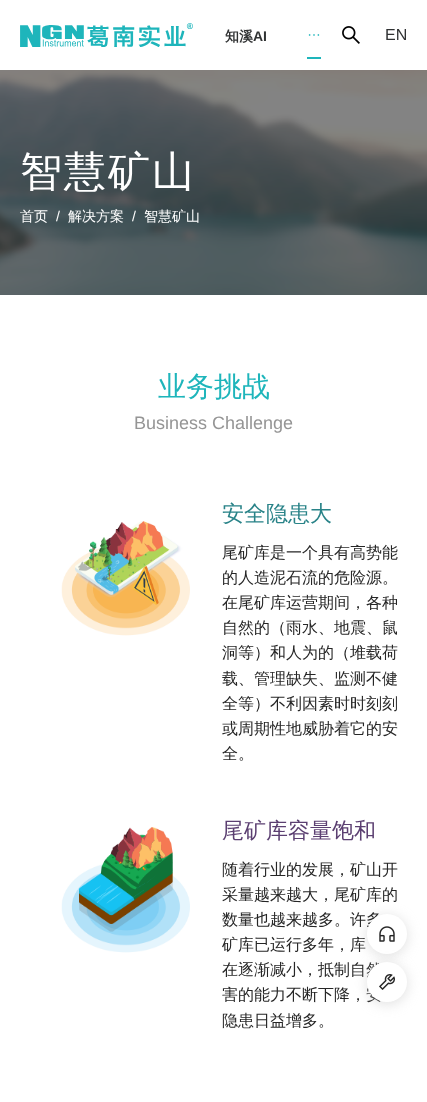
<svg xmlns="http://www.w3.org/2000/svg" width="427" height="1102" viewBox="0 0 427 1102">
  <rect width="100%" height="100%" fill="#fff"/>
  <image x="20" y="23" width="173" height="24" href="img/1.png"/>
  <image x="308" y="34" width="12" height="2" href="img/2.png"/>
  <path d="M307 57h14v2H307z" fill="#1eb5bb"/>
  <image x="342" y="26" width="18" height="18" href="img/3.png"/>
  <image x="0" y="70" width="427" height="225" href="img/4.png"/>
  <image x="61" y="521" width="129" height="115" href="img/5.png"/>
  <image x="61" y="827" width="129" height="126" href="img/6.png"/>
  <rect x="367" y="916" width="40" height="40" rx="20" fill="#bfbfbf80" filter="blur(6.5px)"/>
  <text x="225" y="41" font-family="WenQuanYi Zen Hei" font-size="14" font-weight="bold" fill="#303233">知溪</text>
  <text x="253" y="41" font-family="Liberation Sans" font-size="14" font-weight="bold" fill="#303233">AI</text>
  <text x="385" y="40" font-family="Liberation Sans" font-size="16" fill="#303233">EN</text>
  <text x="20" y="186" font-family="WenQuanYi Zen Hei" font-size="42" font-weight="500" letter-spacing="2" fill="#fff">智慧矿山</text>
  <text x="20" y="221" font-family="WenQuanYi Zen Hei" font-size="14" font-weight="500" fill="#fff">首页</text>
  <text x="56" y="221" font-family="Liberation Sans" font-size="14" fill="#fff">/</text>
  <text x="68" y="221" font-family="WenQuanYi Zen Hei" font-size="14" font-weight="500" fill="#fff">解决方案</text>
  <text x="132" y="221" font-family="Liberation Sans" font-size="14" fill="#fff">/</text>
  <text x="144" y="221" font-family="WenQuanYi Zen Hei" font-size="14" font-weight="500" fill="#fff">智慧矿山</text>
  <text x="158" y="396" font-family="WenQuanYi Zen Hei" font-size="28" font-weight="500" fill="#1eb5bb">业务挑战</text>
  <text x="134" y="429" font-family="Liberation Sans" font-size="18" fill="#959595">Business Challenge</text>
  <text x="222" y="521" font-family="WenQuanYi Zen Hei" font-size="22" font-weight="500" fill="#298388">安全隐患大</text>
  <g font-family="WenQuanYi Zen Hei" font-size="16" font-weight="500" fill="#262626">
    <text x="222" y="558">尾矿库是一个具有高势能</text>
    <text x="222" y="583">的人造泥石流的危险源。</text>
    <text x="222" y="608">在尾矿库运营期间，各种</text>
    <text x="222" y="633">自然的（雨水、地震、鼠</text>
    <text x="222" y="658">洞等）和人为的（堆载荷</text>
    <text x="222" y="684">载、管理缺失、监测不健</text>
    <text x="222" y="709">全等）不利因素时时刻刻</text>
    <text x="222" y="734">或周期性地威胁着它的安</text>
    <text x="222" y="759">全。</text>
  </g>
  <text x="222" y="838" font-family="WenQuanYi Zen Hei" font-size="22" font-weight="500" fill="#5b3f71">尾矿库容量饱和</text>
  <g font-family="WenQuanYi Zen Hei" font-size="16" font-weight="500" fill="#262626">
    <text x="222" y="875">随着行业的发展，矿山开</text>
    <text x="222" y="900">采量越来越大，尾矿库的</text>
    <text x="222" y="925">数量也越来越多。许多</text>
    <text x="222" y="950">矿库已运行多年，库</text>
    <text x="222" y="975">在逐渐减小，抵制自然</text>
    <text x="222" y="1000">害的能力不断下降，安</text>
    <text x="222" y="1026">隐患日益增多。</text>
  </g>
  <circle cx="387" cy="934" r="20" fill="#fff"/>
  <image x="379" y="926" width="16" height="16" href="img/7.png"/>
  <rect x="367" y="964" width="40" height="40" rx="20" fill="#bfbfbf80" filter="blur(6.5px)"/>
  <circle cx="387" cy="982" r="20" fill="#fff"/>
  <image x="379" y="974" width="16" height="16" href="img/8.png"/>
</svg>
